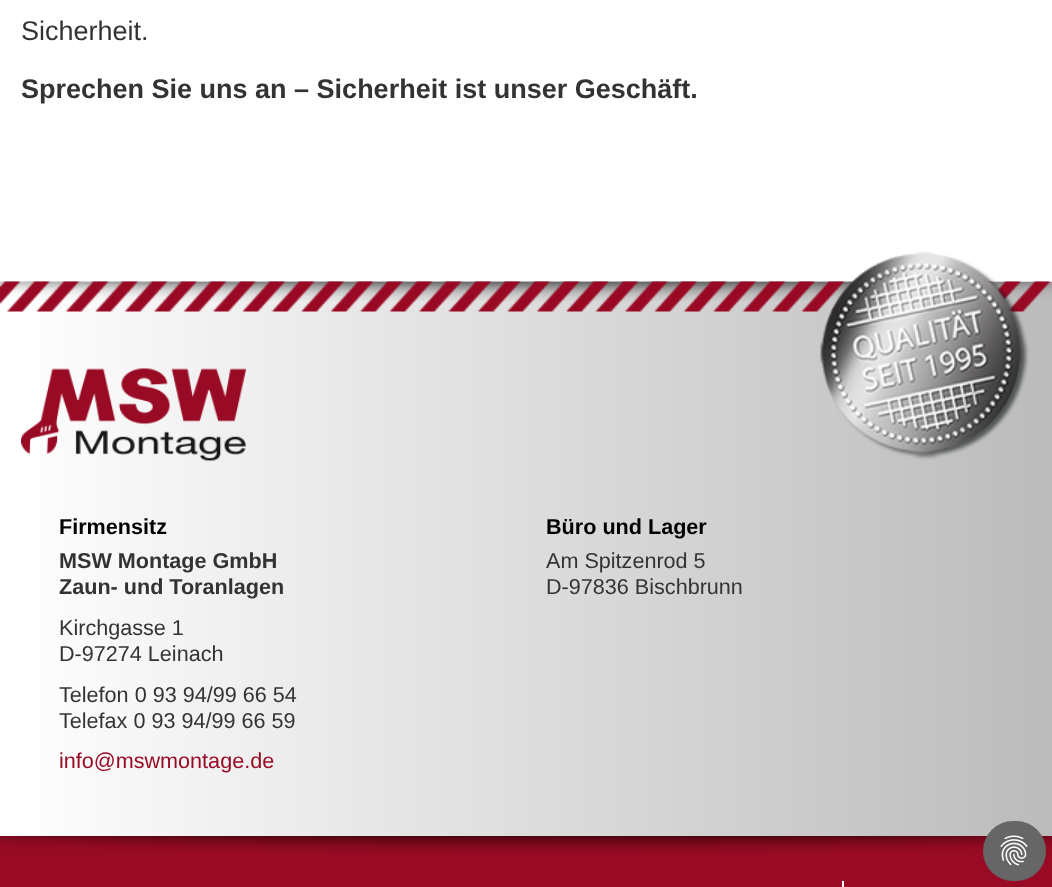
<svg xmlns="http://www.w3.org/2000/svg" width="1052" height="887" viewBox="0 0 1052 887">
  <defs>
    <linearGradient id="g1" gradientUnits="userSpaceOnUse" x1="0" y1="559" x2="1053" y2="559"><stop offset="0" stop-color="#fff"/><stop offset="1" stop-color="#bbb"/></linearGradient>
  </defs>
  <rect width="100%" height="100%" fill="#fff"/>
  <path d="M39 282h1013v554H39z" fill="url(#g1)"/>
  <image x="0" y="281" width="1052" height="20" href="img/2.png"/>
  <image x="0" y="281" width="1050" height="31" href="img/1.png"/>
  <image x="21" y="368" width="225" height="93" href="img/3.png"/>
  <image x="820" y="251" width="209" height="209" href="img/4.png"/>
  <path d="M0 836h1052v51H0z" fill="#990b24"/>
  <image x="0" y="836" width="1052" height="18" href="img/6.png"/>
  <rect x="983" y="821" width="63" height="60" rx="30" fill="#666"/>
  <image x="1000" y="835" width="28" height="31" href="img/5.png"/>
  <path d="M842 881h2v6H842z" fill="#fff"/>
  <text x="21" y="40" font-family="Liberation Sans" font-size="27" fill="#333">Sicherheit.</text>
  <text x="21" y="98" font-family="Liberation Sans" font-size="27" font-weight="bold" fill="#333">Sprechen Sie uns an – Sicherheit ist unser Geschäft.</text>
  <text x="59" y="534" font-family="Liberation Sans" font-size="21.6" font-weight="bold" fill="#000">Firmensitz</text>
  <g font-family="Liberation Sans" font-size="21.6" font-weight="bold" fill="#333">
    <text x="59" y="568">MSW Montage GmbH</text>
    <text x="59" y="594">Zaun- und Toranlagen</text>
  </g>
  <g font-family="Liberation Sans" font-size="21.6" fill="#333">
    <text x="59" y="635">Kirchgasse 1</text>
    <text x="59" y="661">D-97274 Leinach</text>
    <text x="59" y="702">Telefon 0 93 94/99 66 54</text>
    <text x="59" y="728">Telefax 0 93 94/99 66 59</text>
  </g>
  <text x="59" y="768" font-family="Liberation Sans" font-size="21.6" fill="#990b24">info@mswmontage.de</text>
  <text x="546" y="534" font-family="Liberation Sans" font-size="21.6" font-weight="bold" fill="#000">Büro und Lager</text>
  <g font-family="Liberation Sans" font-size="21.6" fill="#333">
    <text x="546" y="568">Am Spitzenrod 5</text>
    <text x="546" y="594">D-97836 Bischbrunn</text>
  </g>
</svg>
